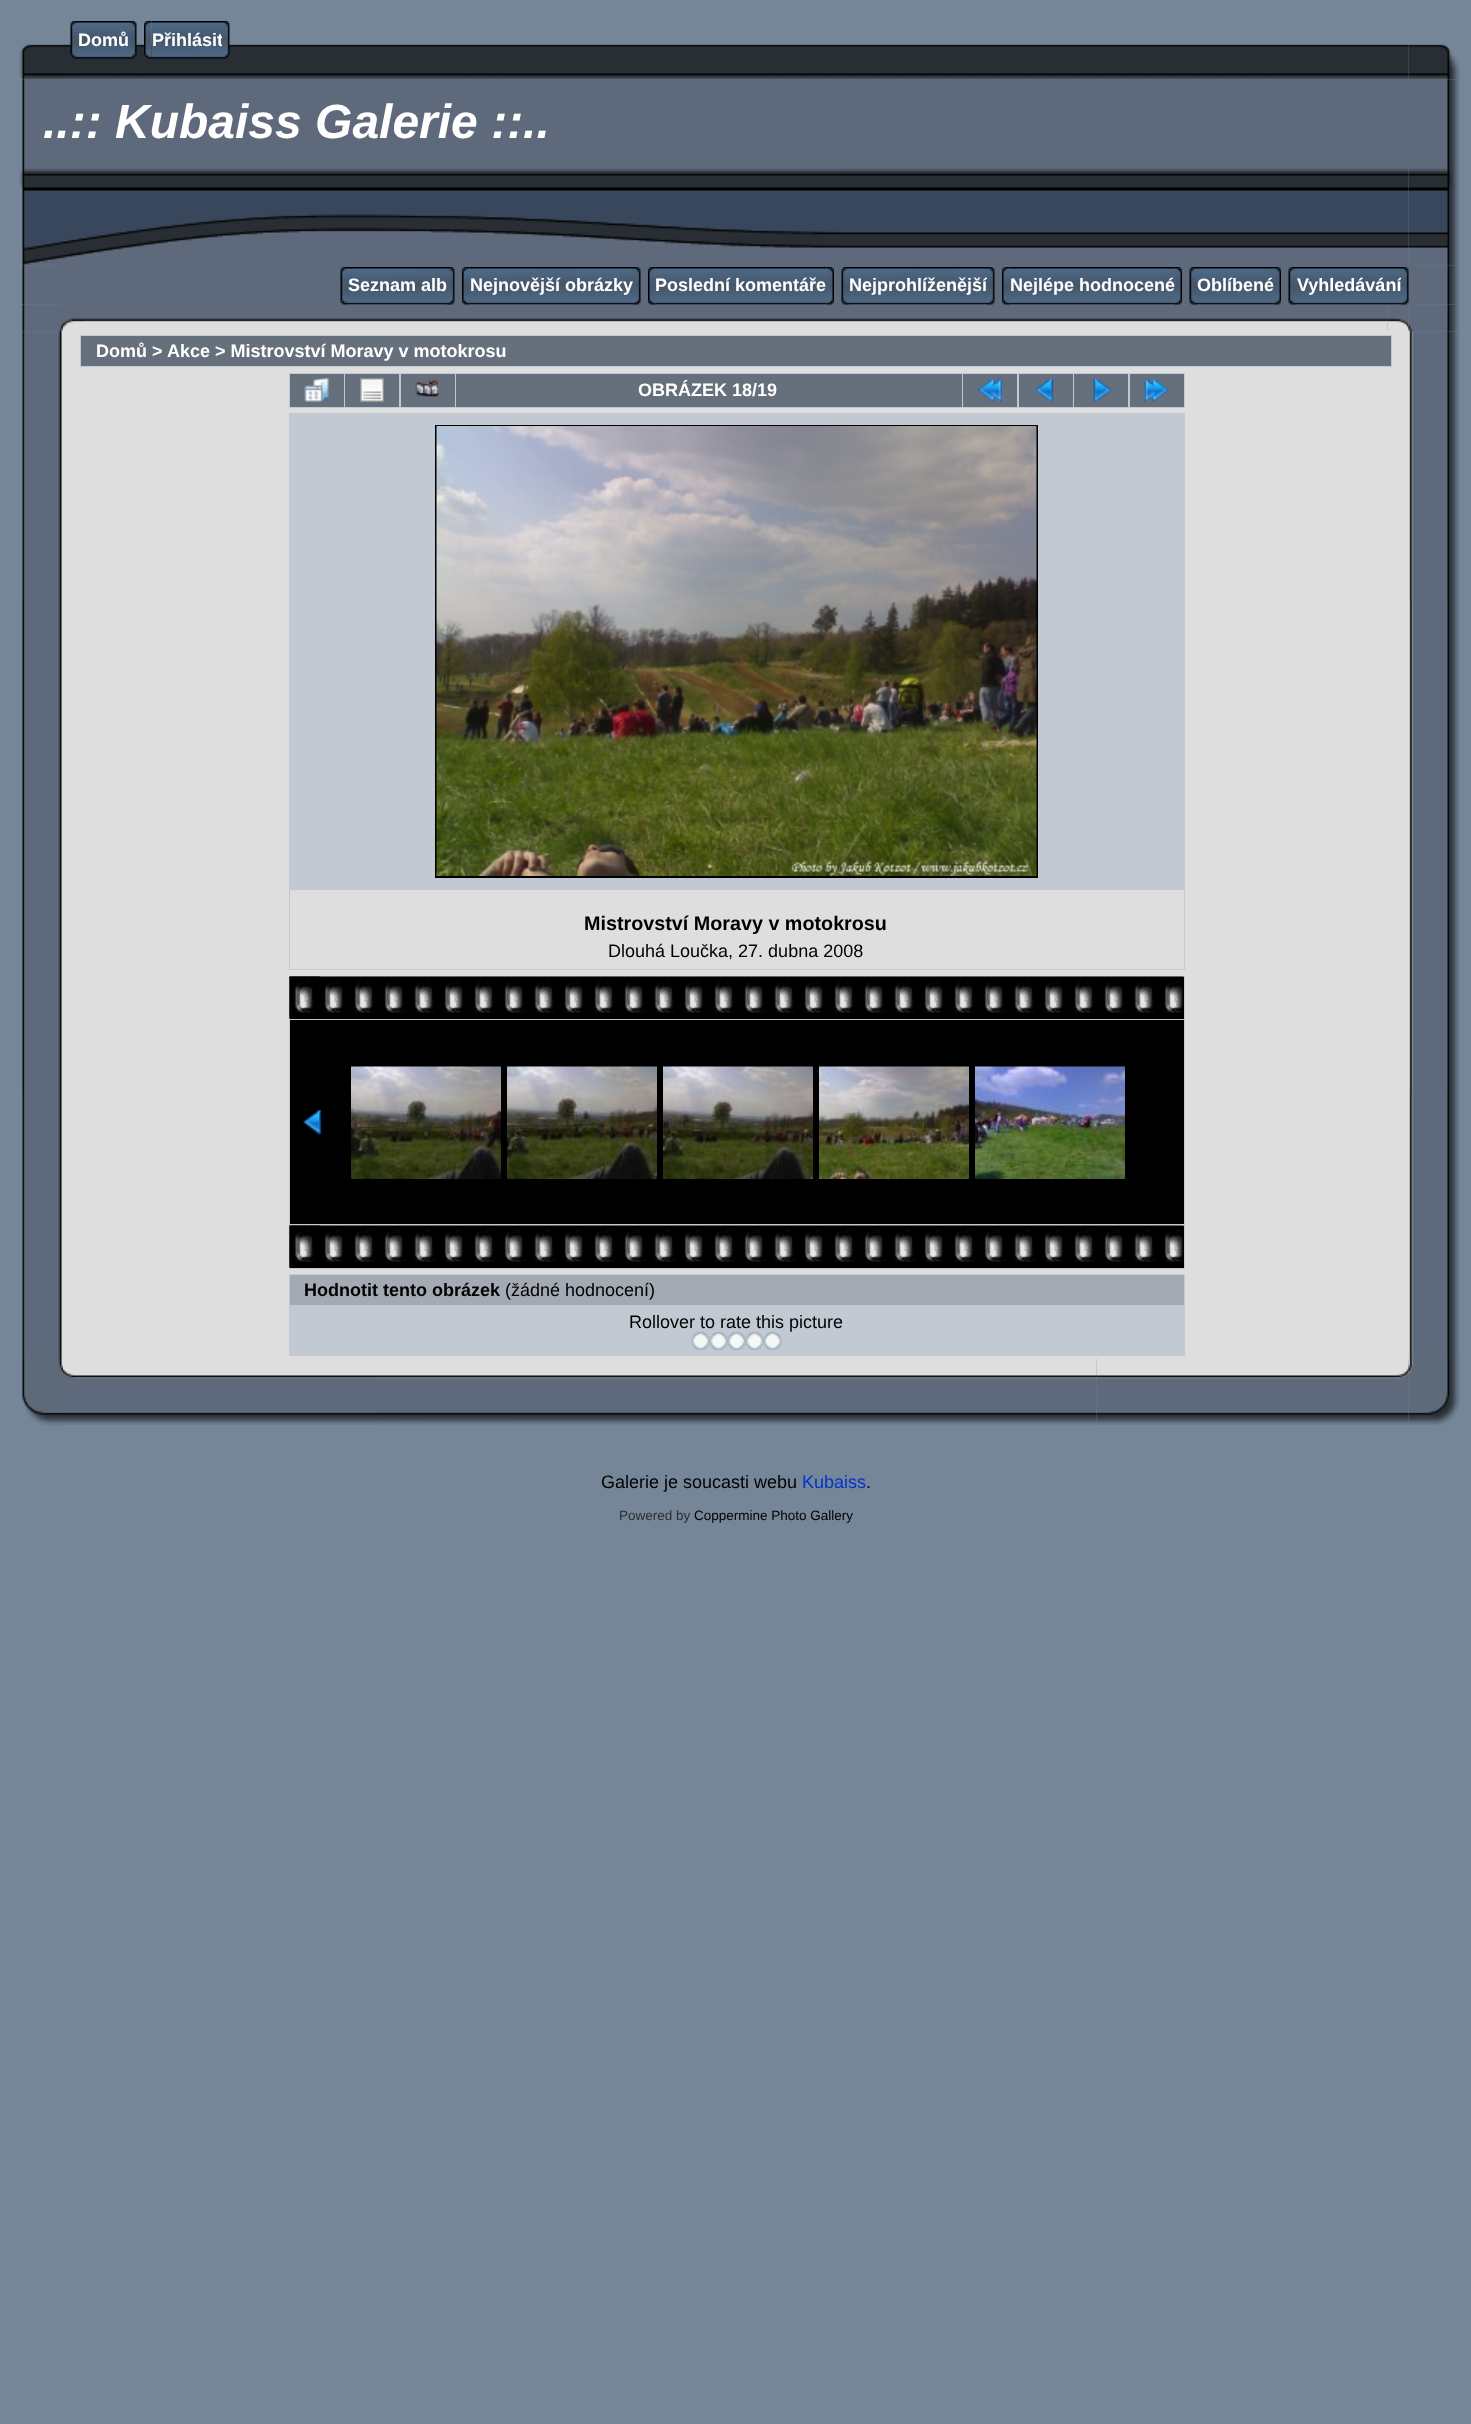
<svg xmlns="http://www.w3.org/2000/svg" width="1471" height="2424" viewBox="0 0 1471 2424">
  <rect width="100%" height="100%" fill="#758698"/>
  <image x="63" y="44" width="1346" height="35" href="img/1.png"/>
  <image x="70" y="21" width="8" height="38" href="img/2.png"/>
  <image x="78" y="21" width="51" height="38" href="img/3.png"/>
  <image x="129" y="21" width="8" height="38" href="img/4.png"/>
  <image x="151" y="21" width="71" height="38" href="img/6.png"/>
  <image x="144" y="21" width="8" height="38" href="img/5.png"/>
  <image x="19" y="44" width="44" height="36" href="img/7.png"/>
  <image x="1408" y="44" width="52" height="36" href="img/8.png"/>
  <image x="22" y="79" width="5" height="86" href="img/9.png"/>
  <path d="M27 79h1421v86H27z" fill="#5e697b"/>
  <image x="1447" y="79" width="13" height="86" href="img/10.png"/>
  <image x="19" y="165" width="821" height="101" href="img/11.png"/>
  <image x="840" y="165" width="569" height="100" href="img/12.png"/>
  <image x="1408" y="165" width="52" height="101" href="img/13.png"/>
  <image x="22" y="265" width="41" height="40" href="img/14.png"/>
  <path d="M63 265h1346v40H63z" fill="#5e697b"/>
  <image x="348" y="267" width="99" height="38" href="img/16.png"/>
  <image x="469" y="267" width="164" height="38" href="img/19.png"/>
  <image x="655" y="267" width="172" height="38" href="img/22.png"/>
  <image x="849" y="267" width="138" height="38" href="img/24.png"/>
  <image x="1009" y="267" width="166" height="38" href="img/25.png"/>
  <image x="1197" y="267" width="77" height="38" href="img/28.png"/>
  <image x="1296" y="267" width="105" height="38" href="img/30.png"/>
  <image x="84" y="304" width="1304" height="27" href="img/35.png"/>
  <image x="340" y="267" width="8" height="38" href="img/15.png"/>
  <image x="447" y="267" width="8" height="38" href="img/17.png"/>
  <image x="462" y="267" width="8" height="38" href="img/18.png"/>
  <image x="633" y="267" width="8" height="38" href="img/20.png"/>
  <image x="648" y="267" width="8" height="38" href="img/21.png"/>
  <image x="826" y="267" width="8" height="38" href="img/23.png"/>
  <image x="841" y="267" width="8" height="38" href="img/15.png"/>
  <image x="1002" y="267" width="8" height="38" href="img/21.png"/>
  <image x="1174" y="267" width="8" height="38" href="img/26.png"/>
  <image x="1189" y="267" width="8" height="38" href="img/27.png"/>
  <image x="1288" y="267" width="8" height="38" href="img/27.png"/>
  <image x="1409" y="265" width="51" height="40" href="img/32.png"/>
  <image x="22" y="304" width="41" height="28" href="img/33.png"/>
  <image x="63" y="305" width="21" height="26" href="img/34.png"/>
  <image x="1387" y="304" width="22" height="27" href="img/36.png"/>
  <image x="1408" y="304" width="52" height="28" href="img/37.png"/>
  <image x="22" y="331" width="41" height="1028" href="img/38.png"/>
  <path d="M23 600h1v492H23z" fill="#0b0d0f"/>
  <path d="M63 331h1346v1028H63z" fill="#dedede"/>
  <path d="M80 335h1312v32H80z" fill="#c2c9d3"/>
  <path d="M81 336h1310v30H81z" fill="#66707c"/>
  <path d="M289 373h896v35H289z" fill="#c2c9d3"/>
  <path d="M290 374h54v33H290z" fill="#66707c"/>
  <image x="304" y="378" width="25" height="24" href="img/39.png"/>
  <path d="M345 374h54v33H345z" fill="#66707c"/>
  <image x="360" y="378" width="24" height="24" href="img/40.png"/>
  <path d="M401 374h54v33H401z" fill="#66707c"/>
  <image x="415" y="379" width="25" height="18" href="img/41.png"/>
  <path d="M456 374h506v33H456z" fill="#66707c"/>
  <path d="M963 374h54v33H963z" fill="#66707c"/>
  <image x="978" y="378" width="24" height="24" href="img/42.png"/>
  <path d="M1019 374h54v33H1019z" fill="#66707c"/>
  <image x="1035" y="378" width="19" height="24" href="img/43.png"/>
  <path d="M1074 374h54v33H1074z" fill="#66707c"/>
  <image x="1093" y="378" width="19" height="24" href="img/44.png"/>
  <path d="M1130 374h54v33H1130z" fill="#66707c"/>
  <image x="1144" y="378" width="25" height="24" href="img/45.png"/>
  <path d="M289 413h896v557H289z" fill="#c2c9d3"/>
  <path d="M436 426h601v451H436z" fill="none" stroke="#000" stroke-width="2"/>
  <image x="436" y="426" width="601" height="450" href="img/46.png"/>
  <path d="M290 890h894v79H290z" fill="#dedede"/>
  <path d="M289 976h896v293H289z" fill="#c2c9d3"/>
  <path d="M290 977h894v42H290z" fill="#000"/>
  <image x="289" y="976" width="895" height="43" href="img/47.png"/>
  <image x="289" y="976" width="31" height="43" href="img/48.png"/>
  <path d="M290 1020h894v204H290z" fill="#000"/>
  <image x="302" y="1110" width="20" height="24" href="img/49.png"/>
  <image x="351" y="1066" width="150" height="113" href="img/50.png"/>
  <image x="507" y="1066" width="150" height="113" href="img/51.png"/>
  <image x="663" y="1066" width="150" height="113" href="img/52.png"/>
  <image x="819" y="1066" width="150" height="113" href="img/53.png"/>
  <image x="975" y="1066" width="150" height="113" href="img/54.png"/>
  <path d="M290 1226h894v42H290z" fill="#000"/>
  <image x="289" y="1225" width="895" height="43" href="img/55.png"/>
  <image x="289" y="1225" width="31" height="43" href="img/48.png"/>
  <path d="M289 1274h896v82H289z" fill="#c2c9d3"/>
  <path d="M290 1275h894v30H290z" fill="#a3aab4"/>
  <image x="691" y="1332" width="19" height="18" href="img/56.png"/>
  <image x="709" y="1332" width="19" height="18" href="img/57.png"/>
  <image x="727" y="1332" width="19" height="18" href="img/57.png"/>
  <image x="745" y="1332" width="19" height="18" href="img/57.png"/>
  <image x="763" y="1332" width="19" height="18" href="img/58.png"/>
  <image x="1409" y="331" width="51" height="1028" href="img/59.png"/>
  <image x="1409" y="600" width="39" height="492" href="img/60.png"/>
  <image x="22" y="1359" width="41" height="67" href="img/61.png"/>
  <image x="63" y="1359" width="312" height="66" href="img/62.png"/>
  <image x="375" y="1359" width="722" height="66" href="img/63.png"/>
  <image x="1096" y="1359" width="313" height="66" href="img/64.png"/>
  <image x="1408" y="1359" width="52" height="66" href="img/65.png"/>
  <g font-family="Liberation Sans" font-size="18" font-weight="bold" fill="#fff">
    <text x="78" y="46">Domů</text>
    <text x="152" y="46">Přihlásit</text>
  </g>
  <image x="222" y="21" width="8" height="38" href="img/4.png"/>
  <text x="43" y="138" font-family="Liberation Sans" font-size="48" font-weight="bold" font-style="italic" fill="#fff">..:: Kubaiss Galerie ::..</text>
  <g font-family="Liberation Sans" font-size="18" font-weight="bold" fill="#fff">
    <text x="348" y="291">Seznam alb</text>
    <text x="470" y="291">Nejnovější obrázky</text>
    <text x="655" y="291">Poslední komentáře</text>
    <text x="849" y="291">Nejprohlíženější</text>
  </g>
  <image x="987" y="267" width="8" height="38" href="img/20.png"/>
  <g font-family="Liberation Sans" font-size="18" font-weight="bold" fill="#fff">
    <text x="1010" y="291">Nejlépe hodnocené</text>
    <text x="1197" y="291">Oblíbené</text>
  </g>
  <image x="1273" y="267" width="8" height="38" href="img/29.png"/>
  <text x="1297" y="291" font-family="Liberation Sans" font-size="18" font-weight="bold" fill="#fff">Vyhledávání</text>
  <image x="1401" y="267" width="8" height="38" href="img/31.png"/>
  <g font-family="Liberation Sans" font-size="18" font-weight="bold" fill="#fff">
    <text x="96" y="357">Domů</text>
    <text x="152" y="357">&gt;</text>
    <text x="167" y="357">Akce &gt; Mistrovství Moravy v motokrosu</text>
    <text x="638" y="396">OBRÁZEK 18/19</text>
  </g>
  <text x="584" y="930" font-family="Liberation Sans" font-size="19.75" font-weight="bold" fill="#000">Mistrovství Moravy v motokrosu</text>
  <text x="608" y="957" font-family="Liberation Sans" font-size="18" fill="#000">Dlouhá Loučka, 27. dubna 2008</text>
  <text x="304" y="1296" font-family="Liberation Sans" font-size="18" font-weight="bold" fill="#000">Hodnotit tento obrázek</text>
  <g font-family="Liberation Sans" font-size="18" fill="#000">
    <text x="505" y="1296">(žádné hodnocení)</text>
    <text x="629" y="1328">Rollover to rate this picture</text>
    <text x="601" y="1488">Galerie je soucasti webu</text>
  </g>
  <text x="802" y="1488" font-family="Liberation Sans" font-size="18" fill="#03c">Kubaiss</text>
  <text x="866" y="1488" font-family="Liberation Sans" font-size="18" fill="#000">.</text>
  <text x="619" y="1520" font-family="Liberation Sans" font-size="13.5" fill="#292e34">Powered by</text>
  <text x="694" y="1520" font-family="Liberation Sans" font-size="13.5" fill="#000">Coppermine Photo Gallery</text>
</svg>
